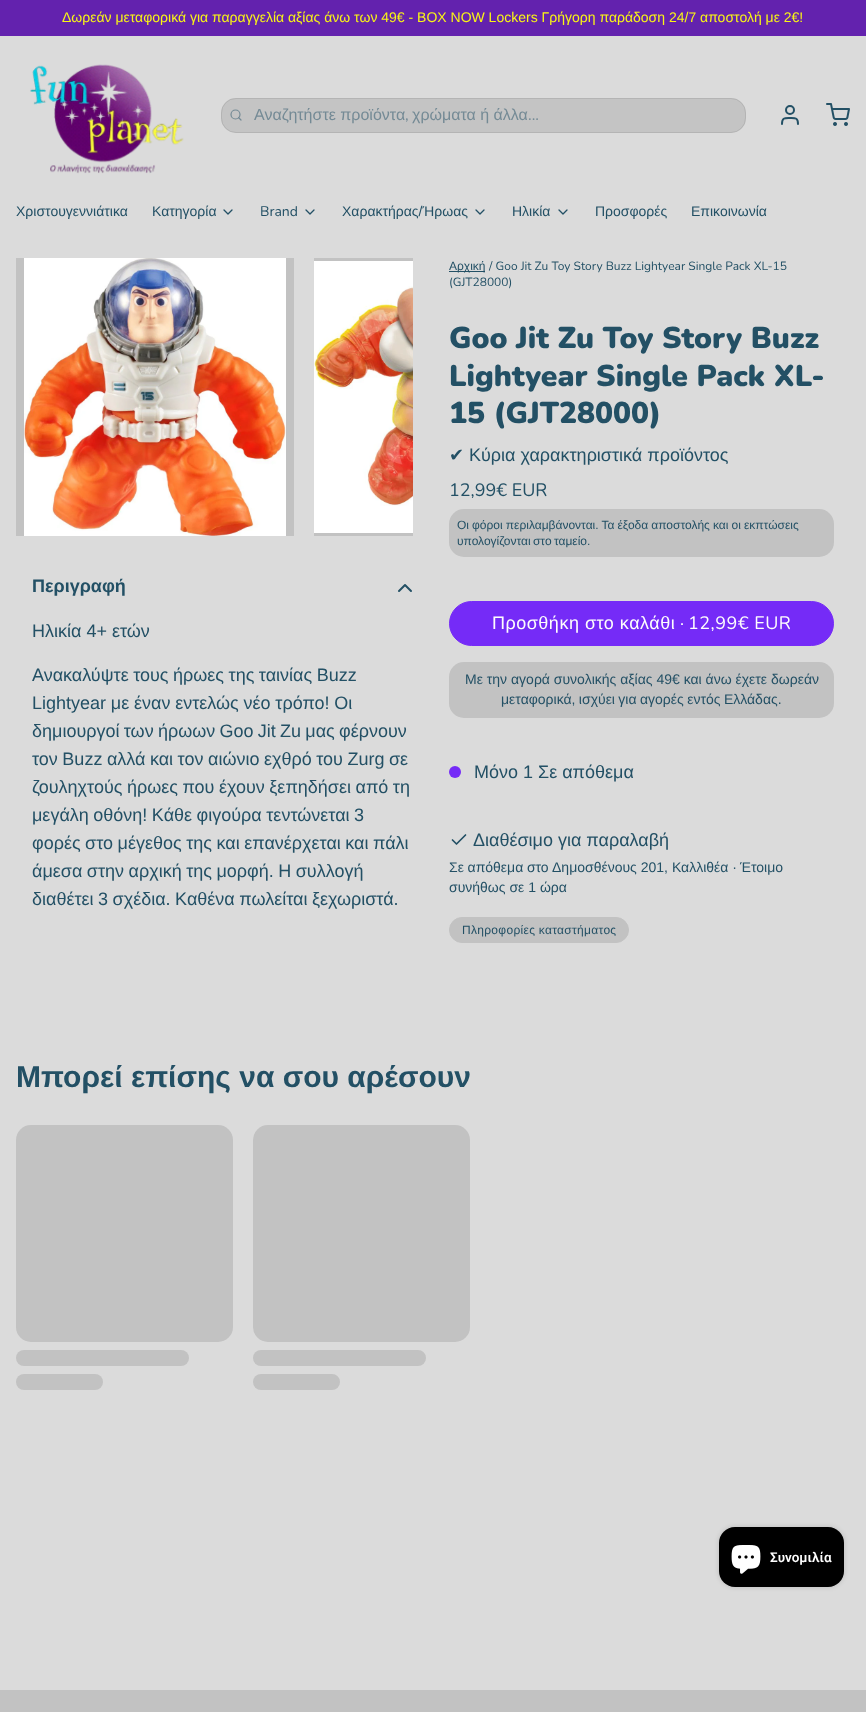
<svg xmlns="http://www.w3.org/2000/svg" width="866" height="1712" viewBox="0 0 866 1712">
  <rect width="100%" height="100%" fill="#dbdbdb"/>
  <path d="M0 0h866v36H0z" fill="#6322ae"/>
  <image x="30" y="64" width="154" height="110" href="img/1.png"/>
  <rect x="221" y="98" width="525" height="35" rx="15" fill="#c4c4c4"/>
  <rect x="221.5" y="98.5" width="524" height="34" rx="14.5" fill="none" stroke="#8e8e8e4d"/>
  <circle cx="235.5" cy="114.5" r="4.5" fill="none" stroke="#748a95" stroke-width="1.2"/>
  <path d="M241 120L238.5 117.5" fill="none" stroke="#748a95" stroke-width="1.2" stroke-linecap="round" stroke-linejoin="round"/>
  <path d="M798 124C798 117.5 795.5 118 790 118C784.5 118 782 117.5 782 124" fill="none" stroke="#235065" stroke-width="2" stroke-linecap="round" stroke-linejoin="round"/>
  <circle cx="790" cy="110" r="4" fill="none" stroke="#235065" stroke-width="2"/>
  <image x="826" y="103" width="24" height="23" href="img/2.png"/>
  <path d="M224 210L228 214L232 210" fill="none" stroke="#235065" stroke-width="1.3" stroke-linecap="round" stroke-linejoin="round"/>
  <path d="M306 210L310 214L314 210" fill="none" stroke="#235065" stroke-width="1.3" stroke-linecap="round" stroke-linejoin="round"/>
  <path d="M476 210L480 214L484 210" fill="none" stroke="#235065" stroke-width="1.3" stroke-linecap="round" stroke-linejoin="round"/>
  <path d="M559 210L563 214L567 210" fill="none" stroke="#235065" stroke-width="1.3" stroke-linecap="round" stroke-linejoin="round"/>
  <path d="M16 258h278v278H16z" fill="#c2c2c2"/>
  <image x="24" y="258" width="262" height="278" href="img/3.png"/>
  <path d="M314 258h99v278H314z" fill="#c2c2c2"/>
  <image x="314" y="261" width="99" height="272" href="img/4.png"/>
  <path d="M411 591L405 585L399 591" fill="none" stroke="#235065" stroke-width="2" stroke-linecap="round" stroke-linejoin="round"/>
  <path d="M449 271h36v1H449z" fill="#235065"/>
  <rect x="449" y="509" width="385" height="48" rx="15" fill="#c2c2c2"/>
  <rect x="449.5" y="601.5" width="384" height="44" rx="22" fill="#752bf7" stroke="#752bf7"/>
  <rect x="449" y="662" width="385" height="56" rx="15" fill="#c2c2c2"/>
  <circle cx="455" cy="772" r="6" fill="#752bf7"/>
  <path d="M465.5 835L456.5 844L452.5 840" fill="none" stroke="#235065" stroke-width="1.7" stroke-linecap="round" stroke-linejoin="round"/>
  <rect x="449.5" y="917.5" width="179" height="25" rx="12.5" fill="#c2c2c2" stroke="#c2c2c2"/>
  <rect x="16" y="1125" width="217" height="217" rx="15" fill="#c2c2c2"/>
  <rect x="16" y="1350" width="173" height="16" rx="8" fill="#c2c2c2"/>
  <rect x="16" y="1374" width="87" height="16" rx="8" fill="#c2c2c2"/>
  <rect x="253" y="1125" width="217" height="217" rx="15" fill="#c2c2c2"/>
  <rect x="253" y="1350" width="173" height="16" rx="8" fill="#c2c2c2"/>
  <rect x="253" y="1374" width="87" height="16" rx="8" fill="#c2c2c2"/>
  <rect x="719" y="1527" width="125" height="60" rx="16" fill="#00000026" filter="blur(2.5px)"/>
  <rect x="719" y="1527" width="125" height="60" rx="16" fill="#000"/>
  <image x="731" y="1545" width="30" height="29" href="img/5.png"/>
  <path d="M0 1690h866v22H0z" fill="#c2c2c2"/>
  <text x="62" y="22" font-family="Liberation Sans" font-size="14" fill="#f9f515">Δωρεάν μεταφορικά για παραγγελία αξίας άνω των 49€ - BOX NOW Lockers Γρήγορη παράδοση 24/7 αποστολή με 2€!</text>
  <text x="254" y="120" font-family="Liberation Sans" font-size="16" fill="#748a95">Αναζητήστε προϊόντα</text>
  <text x="405" y="120" font-family="Nunito" font-size="16" fill="#748a95">,</text>
  <text x="412" y="120" font-family="Liberation Sans" font-size="16" fill="#748a95">χρώματα ή άλλα</text>
  <text x="528" y="120" font-family="Nunito" font-size="16" fill="#748a95">...</text>
  <g font-family="Liberation Sans" font-size="14" fill="#235065">
    <text x="16" y="216">Χριστουγεννιάτικα</text>
    <text x="152" y="216">Κατηγορία</text>
  </g>
  <text x="260" y="216" font-family="Nunito" font-size="14" fill="#235065">Brand</text>
  <g font-family="Liberation Sans" font-size="14" fill="#235065">
    <text x="342" y="216">Χαρακτήρας/Ήρωας</text>
    <text x="512" y="216">Ηλικία</text>
    <text x="595" y="216">Προσφορές</text>
    <text x="691" y="216">Επικοινωνία</text>
  </g>
  <text x="32" y="592" font-family="Liberation Sans" font-size="18" font-weight="bold" fill="#235065">Περιγραφή</text>
  <g font-family="Liberation Sans" font-size="18" fill="#235065">
    <text x="32" y="637">Ηλικία 4+ ετών</text>
    <text x="32" y="681" word-spacing="-0.5">Ανακαλύψτε τους ήρωες της ταινίας Buzz</text>
    <text x="32" y="709" word-spacing="-0.25">Lightyear με έναν εντελώς νέο τρόπο! Οι</text>
    <text x="32" y="737" word-spacing="-0.75">δημιουργοί των ήρωων Goo Jit Zu μας φέρνουν</text>
    <text x="32" y="765" word-spacing="-0.5">τον Buzz αλλά και τον αιώνιο εχθρό του Zurg σε</text>
    <text x="32" y="793" word-spacing="-0.5">ζουληχτούς ήρωες που έχουν ξεπηδήσει από τη</text>
    <text x="32" y="821" word-spacing="-0.5">μεγάλη οθόνη! Κάθε φιγούρα τεντώνεται 3</text>
    <text x="32" y="849" word-spacing="-0.5">φορές στο μέγεθος της και επανέρχεται και πάλι</text>
    <text x="32" y="877" word-spacing="-0.5">άμεσα στην αρχική της μορφή. Η συλλογή</text>
    <text x="32" y="905" word-spacing="-0.5">διαθέτει 3 σχέδια. Καθένα πωλείται ξεχωριστά.</text>
  </g>
  <text x="449" y="270" font-family="Liberation Sans" font-size="12" fill="#235065">Αρχική</text>
  <g font-family="Nunito" font-size="12" fill="#235065">
    <text x="489" y="270">/ Goo Jit Zu Toy Story Buzz Lightyear Single Pack XL-15</text>
    <text x="449" y="286">(GJT28000)</text>
  </g>
  <g font-family="Nunito" font-size="30" font-weight="900" fill="#235065">
    <text x="449" y="348">Goo Jit Zu Toy Story Buzz</text>
    <text x="449" y="386">Lightyear Single Pack XL-</text>
    <text x="449" y="423">15 (GJT28000)</text>
  </g>
  <text x="449" y="461" font-family="DejaVu Sans" font-size="18" fill="#235065">✔</text>
  <text x="469" y="461" font-family="Liberation Sans" font-size="18" fill="#235065">Κύρια χαρακτηριστικά προϊόντος</text>
  <text x="449" y="496" font-family="Nunito" font-size="18" fill="#235065">12,99€ EUR</text>
  <g font-family="Liberation Sans" font-size="12" fill="#235065">
    <text x="457" y="529" word-spacing="-0.25">Οι φόροι περιλαμβάνονται. Τα έξοδα αποστολής και οι εκπτώσεις</text>
    <text x="457" y="545" word-spacing="-1">υπολογίζονται στο ταμείο.</text>
  </g>
  <g font-family="Liberation Sans" font-size="18" letter-spacing="0.5" fill="#fdfdfd">
    <text x="492" y="629">Προσθήκη στο καλάθι</text>
    <text x="679" y="629">·</text>
  </g>
  <text x="688" y="629" font-family="Nunito" font-size="18" letter-spacing="0.5" fill="#fdfdfd">12,99€ EUR</text>
  <g font-family="Liberation Sans" font-size="14" fill="#235065">
    <text x="465" y="684">Με την αγορά συνολικής αξίας 49€ και άνω έχετε δωρεάν</text>
    <text x="501" y="704" word-spacing="-0.5">μεταφορικά, ισχύει για αγορές εντός Ελλάδας.</text>
  </g>
  <g font-family="Liberation Sans" font-size="18" fill="#235065">
    <text x="474" y="778">Μόνο 1</text>
    <text x="538" y="778">Σε απόθεμα</text>
    <text x="473" y="846">Διαθέσιμο για παραλαβή</text>
  </g>
  <g font-family="Liberation Sans" font-size="14" fill="#235065">
    <text x="449" y="872" word-spacing="-0.25">Σε απόθεμα στο</text>
    <text x="552" y="872">Δημοσθένους 201, Καλλιθέα ·</text>
    <text x="740" y="872">Έτοιμο</text>
    <text x="449" y="892">συνήθως σε 1 ώρα</text>
  </g>
  <text x="462" y="934" font-family="Liberation Sans" font-size="12" letter-spacing="0.3" fill="#235065">Πληροφορίες καταστήματος</text>
  <text x="16" y="1087" font-family="Liberation Sans" font-size="30" font-weight="bold" fill="#235065">Μπορεί επίσης να σου αρέσουν</text>
  <text x="770" y="1562" font-family="Roboto" font-size="13.5" font-weight="600" fill="#fdfdfd">Συνομιλία</text>
</svg>
